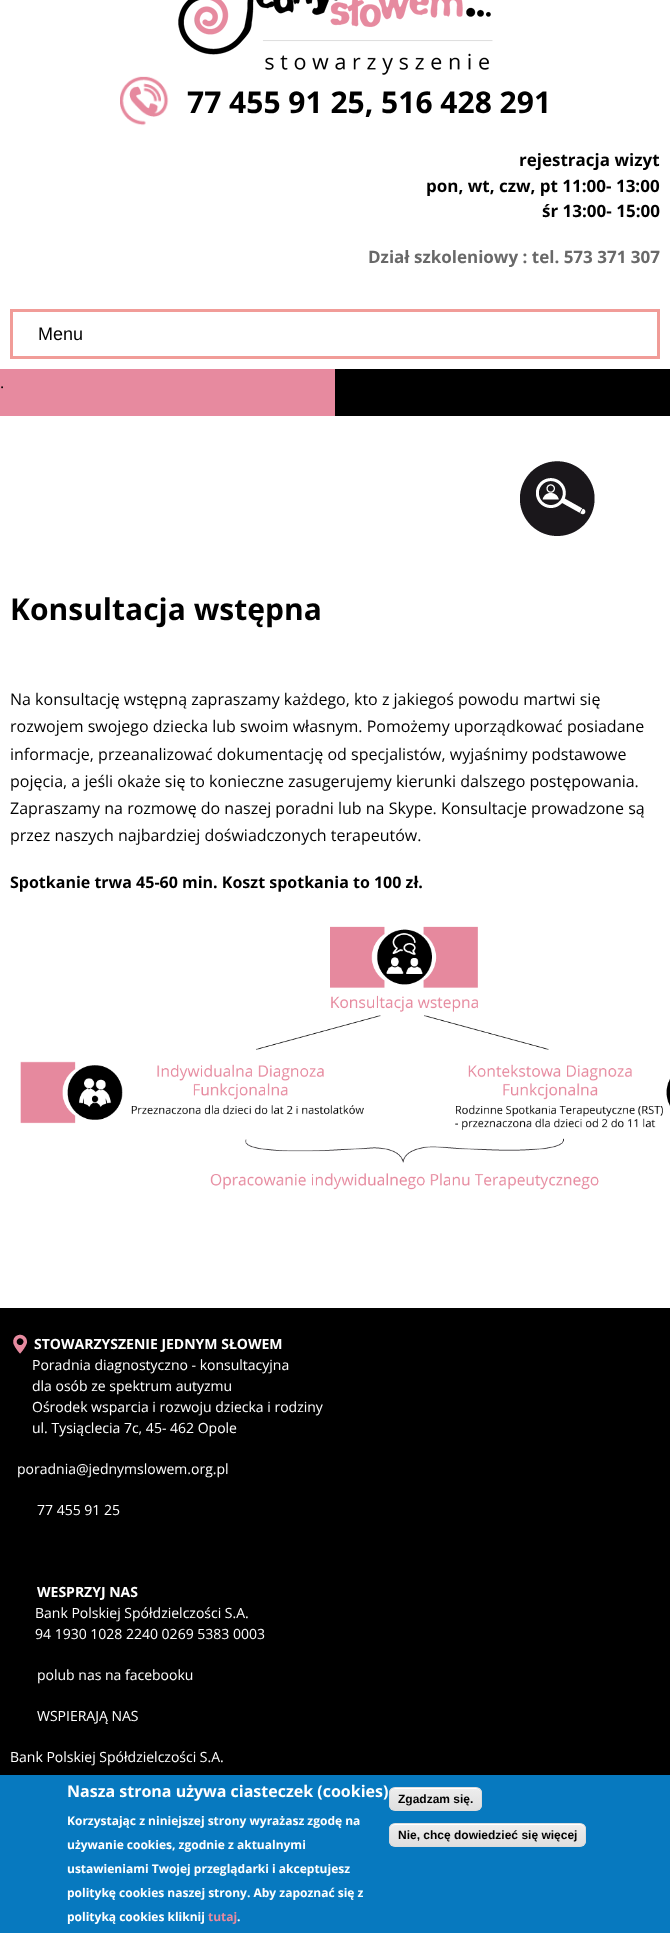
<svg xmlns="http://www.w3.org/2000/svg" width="670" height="1933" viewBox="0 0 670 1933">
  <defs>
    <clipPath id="clip1"><rect x="389" y="1787" width="93" height="24" rx="6"/></clipPath>
    <linearGradient id="g1" gradientUnits="userSpaceOnUse" x1="436" y1="1788" x2="436" y2="1810"><stop offset="0.05" stop-color="#ededed"/><stop offset="1" stop-color="#dfdfdf"/></linearGradient>
    <clipPath id="clip2"><rect x="389" y="1823" width="197" height="24" rx="6"/></clipPath>
    <linearGradient id="g2" gradientUnits="userSpaceOnUse" x1="488" y1="1824" x2="488" y2="1846"><stop offset="0.05" stop-color="#ededed"/><stop offset="1" stop-color="#dfdfdf"/></linearGradient>
  </defs>
  <rect width="100%" height="100%" fill="#fff"/>
  <image x="178" y="0" width="315" height="75" href="img/1.png"/>
  <image x="120" y="76" width="49" height="50" href="img/2.png"/>
  <path d="M11.5 310.5h647v47H11.5z" fill="none" stroke="#f19c98" stroke-width="3"/>
  <path d="M0 369h335v47H0z" fill="#e78a9f"/>
  <path d="M335 369h335v47H335z" fill="#000"/>
  <image x="520" y="461" width="75" height="75" href="img/3.png"/>
  <image x="20" y="926" width="650" height="264" href="img/4.png"/>
  <path d="M0 1308h670v467H0z" fill="#000"/>
  <image x="13" y="1334" width="14" height="20" href="img/5.png"/>
  <path d="M0 1775h670v158H0z" fill="#0779bf"/>
  <g clip-path="url(#clip1)">
    <path d="M389 1788h93v22H389z" fill="url(#g1)"/>
  </g>
  <path d="M395 1789H476C479 1789 481 1791 481 1794C481 1785 468 1788 462 1788H408C403 1788 390 1785 390 1794C390 1791 392 1789 395 1789Z" fill="#fff"/>
  <rect x="389.5" y="1787.5" width="92" height="23" rx="5.5" fill="none" stroke="#dcdcdc"/>
  <g clip-path="url(#clip2)">
    <path d="M389 1824h197v22H389z" fill="url(#g2)"/>
  </g>
  <path d="M395 1825H581C585 1826 585 1829 585 1832V1829C585 1826 583 1824 580 1824H395C392 1824 390 1826 390 1829V1831C390 1828 391 1825 395 1825Z" fill="#fff"/>
  <rect x="389.5" y="1823.5" width="196" height="23" rx="5.5" fill="none" stroke="#dcdcdc"/>
  <text x="187" y="113" font-family="Open Sans" font-size="30" font-weight="bold" fill="#000">77 455 91 25, 516 428 291</text>
  <g font-family="Open Sans" font-size="17" font-weight="bold" fill="#000">
    <text x="519" y="166">rejestracja wizyt</text>
    <text x="426" y="192">pon, wt, czw, pt 11:00- 13:00</text>
    <text x="542" y="217">śr 13:00- 15:00</text>
  </g>
  <text x="368" y="263" font-family="Open Sans" font-size="17" font-weight="bold" fill="#696969">Dział szkoleniowy : tel. 573 371 307</text>
  <text x="38" y="340" font-family="Liberation Sans" font-size="18" fill="#000">Menu</text>
  <text x="0" y="388" font-family="Open Sans" font-size="16" fill="#000">.</text>
  <text x="10" y="620" font-family="Open Sans" font-size="30" font-weight="bold" fill="#000">Konsultacja wstępna</text>
  <g font-family="Open Sans" font-size="16" fill="#000">
    <text x="10" y="705">Na konsultację wstępną zapraszamy każdego, kto z jakiegoś powodu martwi się</text>
    <text x="10" y="732">rozwojem swojego dziecka lub swoim własnym. Pomożemy uporządkować posiadane</text>
    <text x="10" y="760">informacje, przeanalizować dokumentację od specjalistów, wyjaśnimy podstawowe</text>
    <text x="10" y="787">pojęcia, a jeśli okaże się to konieczne zasugerujemy kierunki dalszego postępowania.</text>
    <text x="10" y="814">Zapraszamy na rozmowę do naszej poradni lub na Skype. Konsultacje prowadzone są</text>
    <text x="10" y="841">przez naszych najbardziej doświadczonych terapeutów.</text>
  </g>
  <text x="10" y="888" font-family="Open Sans" font-size="16" font-weight="bold" fill="#000">Spotkanie trwa 45-60 min. Koszt spotkania to 100 zł.</text>
  <text x="34" y="1349" font-family="Open Sans" font-size="14" font-weight="bold" fill="#fff">STOWARZYSZENIE JEDNYM SŁOWEM</text>
  <g font-family="Open Sans" font-size="14" fill="#fff">
    <text x="32" y="1370">Poradnia diagnostyczno - konsultacyjna</text>
    <text x="32" y="1391">dla osób ze spektrum autyzmu</text>
    <text x="32" y="1412">Ośrodek wsparcia i rozwoju dziecka i rodziny</text>
    <text x="32" y="1433">ul. Tysiąclecia 7c, 45- 462 Opole</text>
    <text x="17" y="1474">poradnia@jednymslowem.org.pl</text>
    <text x="37" y="1515">77 455 91 25</text>
  </g>
  <text x="37" y="1597" font-family="Open Sans" font-size="14" font-weight="bold" fill="#fff">WESPRZYJ NAS</text>
  <g font-family="Open Sans" font-size="14" fill="#fff">
    <text x="35" y="1618">Bank Polskiej Spółdzielczości S.A.</text>
    <text x="35" y="1639">94 1930 1028 2240 0269 5383 0003</text>
    <text x="37" y="1680">polub nas na facebooku</text>
    <text x="37" y="1721">WSPIERAJĄ NAS</text>
    <text x="10" y="1762">Bank Polskiej Spółdzielczości S.A.</text>
  </g>
  <text x="67" y="1797" font-family="Open Sans" font-size="16" font-weight="bold" fill="#fff">Nasza strona używa ciasteczek (cookies)</text>
  <g font-family="Open Sans" font-size="12" font-weight="bold" fill="#fff">
    <text x="67" y="1825">Korzystając z niniejszej strony wyrażasz zgodę na</text>
    <text x="67" y="1849">używanie cookies, zgodnie z aktualnymi</text>
    <text x="67" y="1873">ustawieniami Twojej przeglądarki i akceptujesz</text>
    <text x="67" y="1897">politykę cookies naszej strony. Aby zapoznać się z</text>
    <text x="67" y="1921">polityką cookies kliknij</text>
  </g>
  <text x="208" y="1921" font-family="Open Sans" font-size="12" font-weight="bold" fill="#e68a9f">tutaj</text>
  <text x="237" y="1921" font-family="Open Sans" font-size="12" font-weight="bold" fill="#fff">.</text>
  <g font-family="Liberation Sans" font-size="12" font-weight="bold" fill="#000">
    <text x="398" y="1803">Zgadzam się.</text>
    <text x="398" y="1839">Nie, chcę dowiedzieć się więcej</text>
  </g>
</svg>
